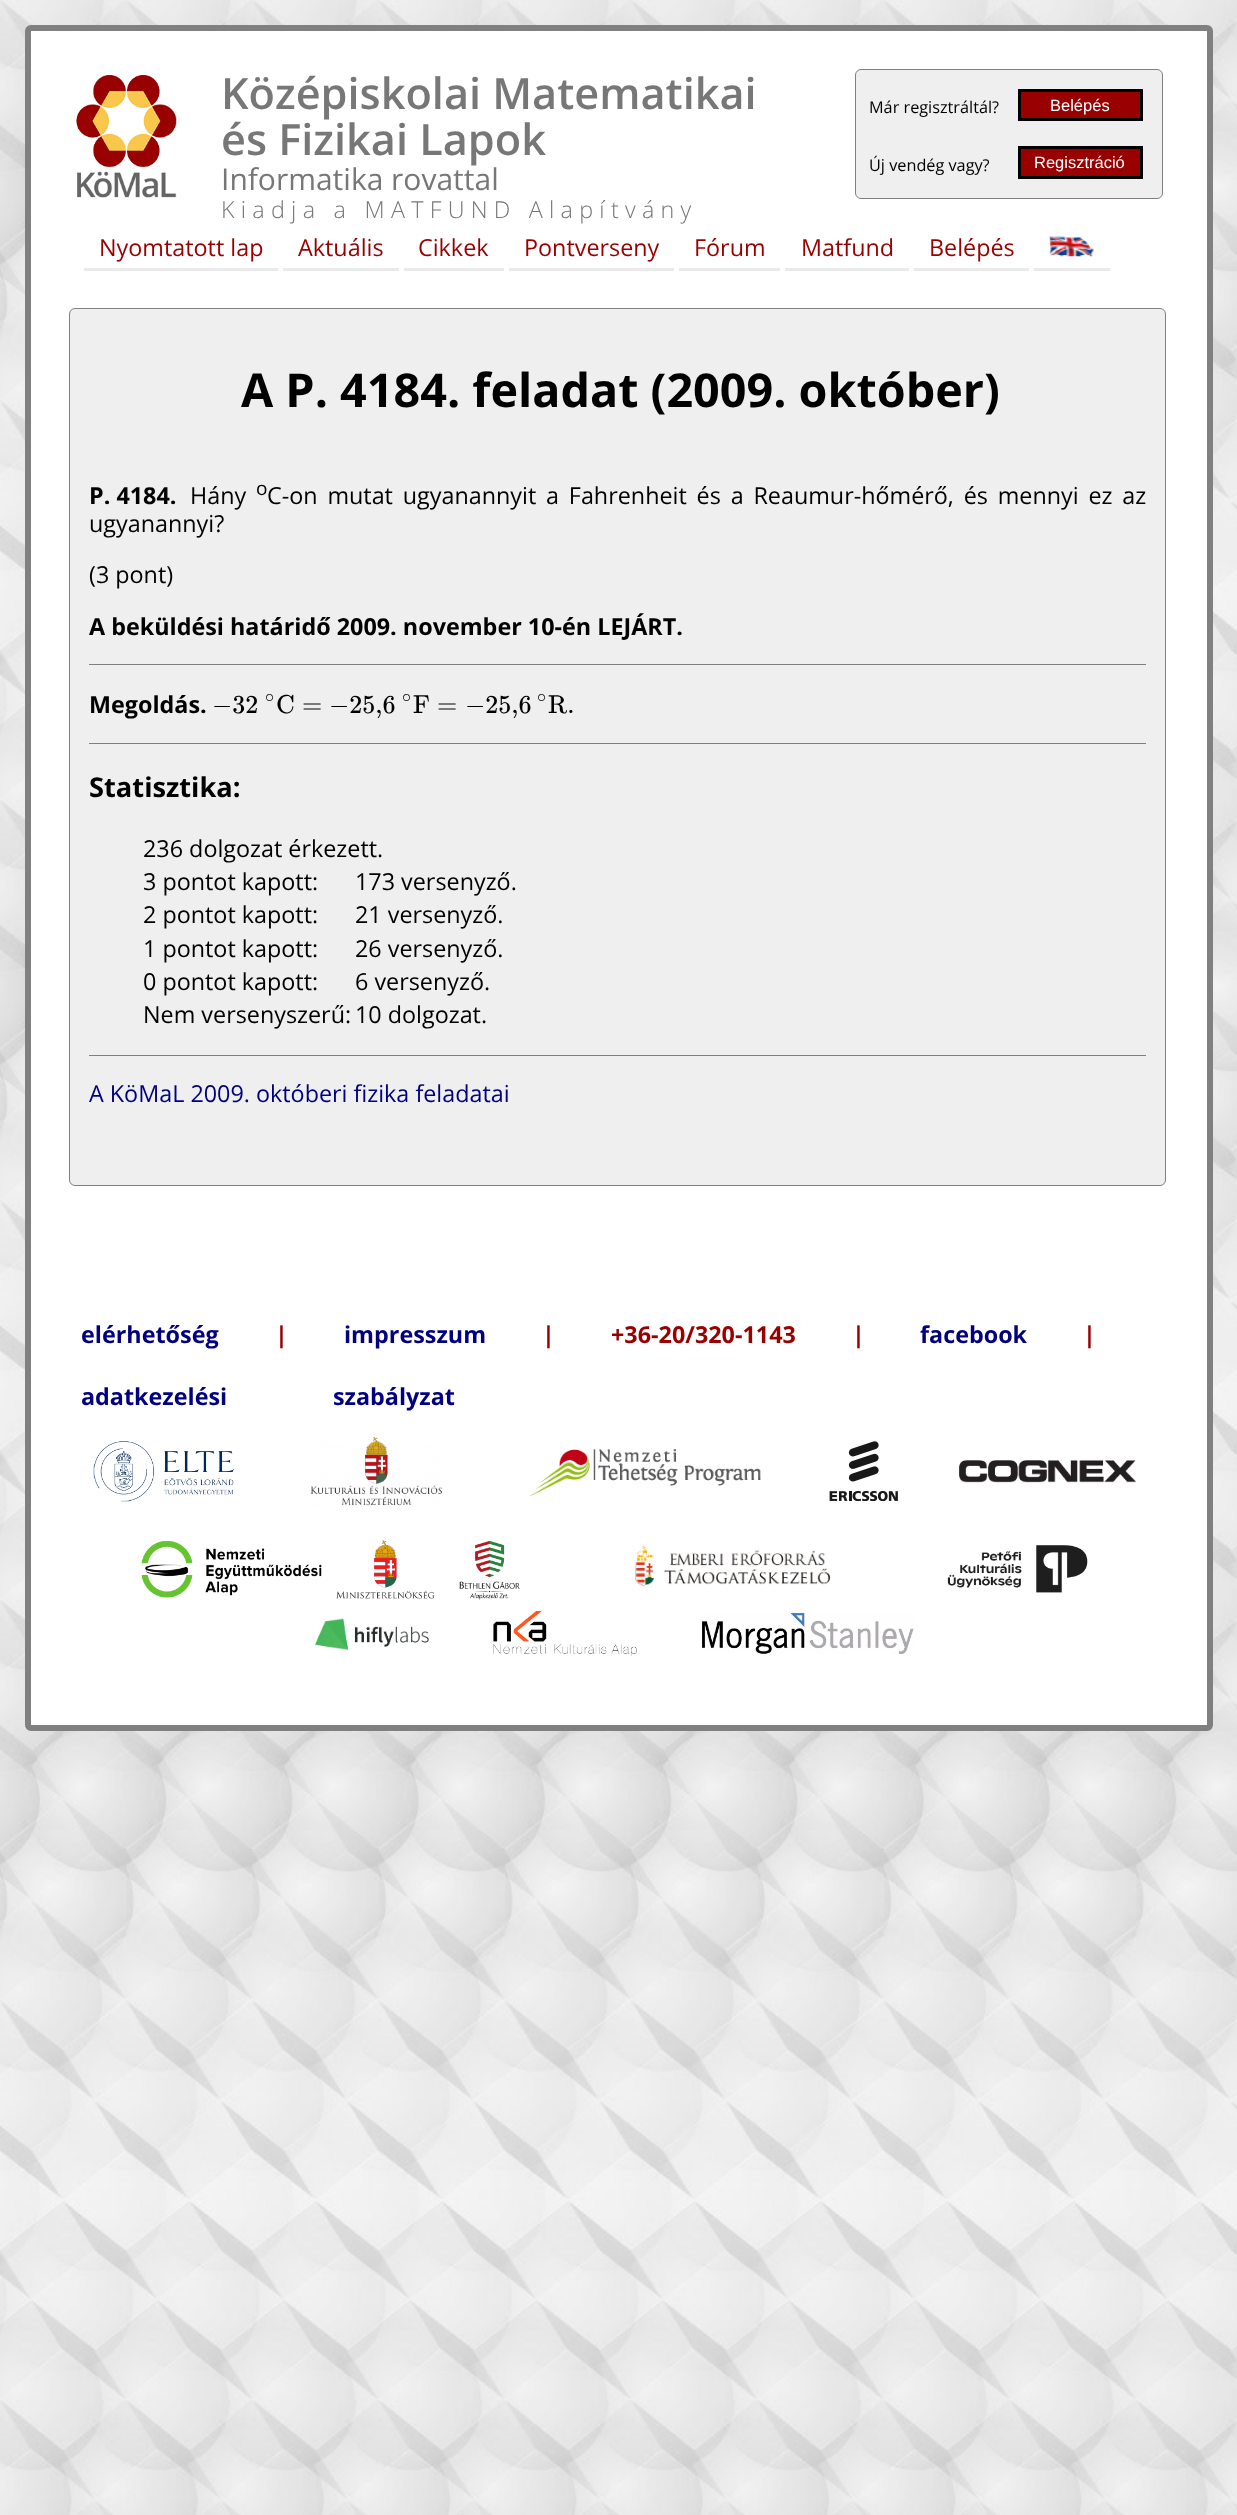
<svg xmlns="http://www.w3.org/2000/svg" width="1237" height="2515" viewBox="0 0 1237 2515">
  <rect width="100%" height="100%" fill="#fff"/>
  <image x="0" y="0" width="1237" height="2515" href="img/1.png"/>
  <rect x="28" y="28" width="1182" height="1700" rx="3" fill="#fff" stroke="#808080" stroke-width="6"/>
  <image x="76" y="75" width="101" height="123" href="img/2.png"/>
  <rect x="855.5" y="69.5" width="307" height="129" rx="5.5" fill="#efefef" stroke="#808080"/>
  <path d="M1019.5 90.5h122v29H1019.5z" fill="#900" stroke="#000" stroke-width="3"/>
  <path d="M1019.5 147.5h122v30H1019.5z" fill="#900" stroke="#000" stroke-width="3"/>
  <path d="M84 268h194v3H84z" fill="#eaeaea"/>
  <path d="M283 268h116v3H283z" fill="#eaeaea"/>
  <path d="M404 268h100v3H404z" fill="#eaeaea"/>
  <path d="M509 268h165v3H509z" fill="#eaeaea"/>
  <path d="M679 268h101v3H679z" fill="#eaeaea"/>
  <path d="M785 268h124v3H785z" fill="#eaeaea"/>
  <path d="M914 268h115v3H914z" fill="#eaeaea"/>
  <path d="M1034 268h76v3H1034z" fill="#eaeaea"/>
  <image x="1048" y="236" width="46" height="21" href="img/3.png"/>
  <rect x="69.5" y="308.5" width="1096" height="877" rx="5.5" fill="#efefef" stroke="#808080"/>
  <path d="M89 664h1057v1H89z" fill="#808080"/>
  <path d="M89 743h1057v1H89z" fill="#808080"/>
  <path d="M89 1055h1057v1H89z" fill="#808080"/>
  <image x="93" y="1441" width="141" height="61" href="img/4.png"/>
  <image x="310" y="1437" width="132" height="69" href="img/5.png"/>
  <image x="530" y="1449" width="231" height="47" href="img/6.png"/>
  <image x="829" y="1441" width="69" height="60" href="img/7.png"/>
  <image x="959" y="1460" width="177" height="23" href="img/8.png"/>
  <image x="141" y="1540" width="379" height="60" href="img/9.png"/>
  <image x="635" y="1544" width="196" height="43" href="img/10.png"/>
  <image x="947" y="1545" width="141" height="48" href="img/11.png"/>
  <image x="315" y="1618" width="114" height="32" href="img/12.png"/>
  <image x="493" y="1610" width="144" height="46" href="img/13.png"/>
  <image x="702" y="1612" width="212" height="42" href="img/14.png"/>
  <g font-family="Open Sans" font-size="43.25" font-weight="600" fill="#777">
    <text x="221" y="109">Középiskolai Matematikai</text>
    <text x="221" y="155">és Fizikai Lapok</text>
  </g>
  <text x="221" y="190" font-family="Open Sans" font-size="30" fill="#777">Informatika rovattal</text>
  <text x="221" y="218" font-family="Open Sans" font-size="23.35" font-weight="300" letter-spacing="6.25" fill="#777">Kiadja a MATFUND Alapítvány</text>
  <text x="869" y="113" font-family="Open Sans" font-size="16.25" fill="#000">Már regisztráltál?</text>
  <text x="1050" y="111" font-family="Liberation Sans" font-size="16.5" fill="#fff">Belépés</text>
  <text x="869" y="171" font-family="Open Sans" font-size="16.25" fill="#000">Új vendég vagy?</text>
  <text x="1034" y="168" font-family="Liberation Sans" font-size="16.5" fill="#fff">Regisztráció</text>
  <g font-family="Open Sans" font-size="23.35" fill="#900">
    <text x="99" y="256">Nyomtatott lap</text>
    <text x="298" y="256">Aktuális</text>
    <text x="418" y="256">Cikkek</text>
    <text x="524" y="256">Pontverseny</text>
    <text x="694" y="256">Fórum</text>
    <text x="801" y="256">Matfund</text>
    <text x="929" y="256">Belépés</text>
  </g>
  <text x="241" y="407" font-family="Open Sans" font-size="46.7" font-weight="bold" fill="#000">A P. 4184. feladat (2009. október)</text>
  <text x="89" y="504" font-family="Open Sans" font-size="23.35" font-weight="bold" fill="#000">P. 4184.</text>
  <text x="190" y="504" font-family="Open Sans" font-size="23.35" fill="#000">Hány</text>
  <text x="256" y="495" font-family="Open Sans" font-size="19" fill="#000">o</text>
  <g font-family="Open Sans" font-size="23.35" fill="#000">
    <text x="267" y="504" word-spacing="3.75">C-on mutat ugyanannyit a Fahrenheit és a Reaumur-hőmérő, és mennyi ez az</text>
    <text x="89" y="532">ugyanannyi?</text>
    <text x="89" y="583">(3 pont)</text>
  </g>
  <g font-family="Open Sans" font-size="23.35" font-weight="bold" fill="#000">
    <text x="89" y="635">A beküldési határidő 2009. november 10-én LEJÁRT.</text>
    <text x="89" y="713">Megoldás.</text>
  </g>
  <text x="212" y="713" font-family="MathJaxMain" font-size="26" fill="#000">−32</text>
  <text x="265" y="702" font-family="MathJaxMain" font-size="18" fill="#000">∘</text>
  <g font-family="MathJaxMain" font-size="26" fill="#000">
    <text x="276" y="713">C</text>
    <text x="302" y="713">=</text>
    <text x="329" y="713">−25,6</text>
  </g>
  <text x="402" y="702" font-family="MathJaxMain" font-size="18" fill="#000">∘</text>
  <g font-family="MathJaxMain" font-size="26" fill="#000">
    <text x="413" y="713">F</text>
    <text x="437" y="713">=</text>
    <text x="465" y="713">−25,6</text>
  </g>
  <text x="537" y="702" font-family="MathJaxMain" font-size="18" fill="#000">∘</text>
  <text x="548" y="713" font-family="MathJaxMain" font-size="26" fill="#000">R.</text>
  <text x="89" y="797" font-family="Open Sans" font-size="27.25" font-weight="bold" fill="#000">Statisztika:</text>
  <g font-family="Open Sans" font-size="23.35" fill="#000">
    <text x="143" y="857">236 dolgozat érkezett.</text>
    <text x="143" y="890">3 pontot kapott:</text>
    <text x="355" y="890">173 versenyző.</text>
    <text x="143" y="923">2 pontot kapott:</text>
    <text x="355" y="923">21 versenyző.</text>
    <text x="143" y="957">1 pontot kapott:</text>
    <text x="355" y="957">26 versenyző.</text>
    <text x="143" y="990">0 pontot kapott:</text>
    <text x="355" y="990">6 versenyző.</text>
    <text x="143" y="1023">Nem versenyszerű:</text>
    <text x="355" y="1023">10 dolgozat.</text>
  </g>
  <text x="89" y="1102" font-family="Open Sans" font-size="23.35" fill="#000080">A KöMaL 2009. októberi fizika feladatai</text>
  <text x="81" y="1343" font-family="Open Sans" font-size="23.35" font-weight="bold" fill="#000080">elérhetőség</text>
  <text x="275" y="1343" font-family="Open Sans" font-size="23.35" font-weight="bold" fill="#900">|</text>
  <text x="344" y="1343" font-family="Open Sans" font-size="23.35" font-weight="bold" fill="#000080">impresszum</text>
  <g font-family="Open Sans" font-size="23.35" font-weight="bold" fill="#900">
    <text x="542" y="1343">|</text>
    <text x="611" y="1343" word-spacing="50">+36-20/320-1143 |</text>
  </g>
  <text x="920" y="1343" font-family="Open Sans" font-size="23.35" font-weight="bold" fill="#000080">facebook</text>
  <text x="1083" y="1343" font-family="Open Sans" font-size="23.35" font-weight="bold" fill="#900">|</text>
  <text x="81" y="1405" font-family="Open Sans" font-size="23.35" font-weight="bold" fill="#000080">adatkezelési</text>
  <text x="333" y="1405" font-family="Open Sans" font-size="23.35" font-weight="bold" fill="#000080">szabályzat</text>
</svg>
